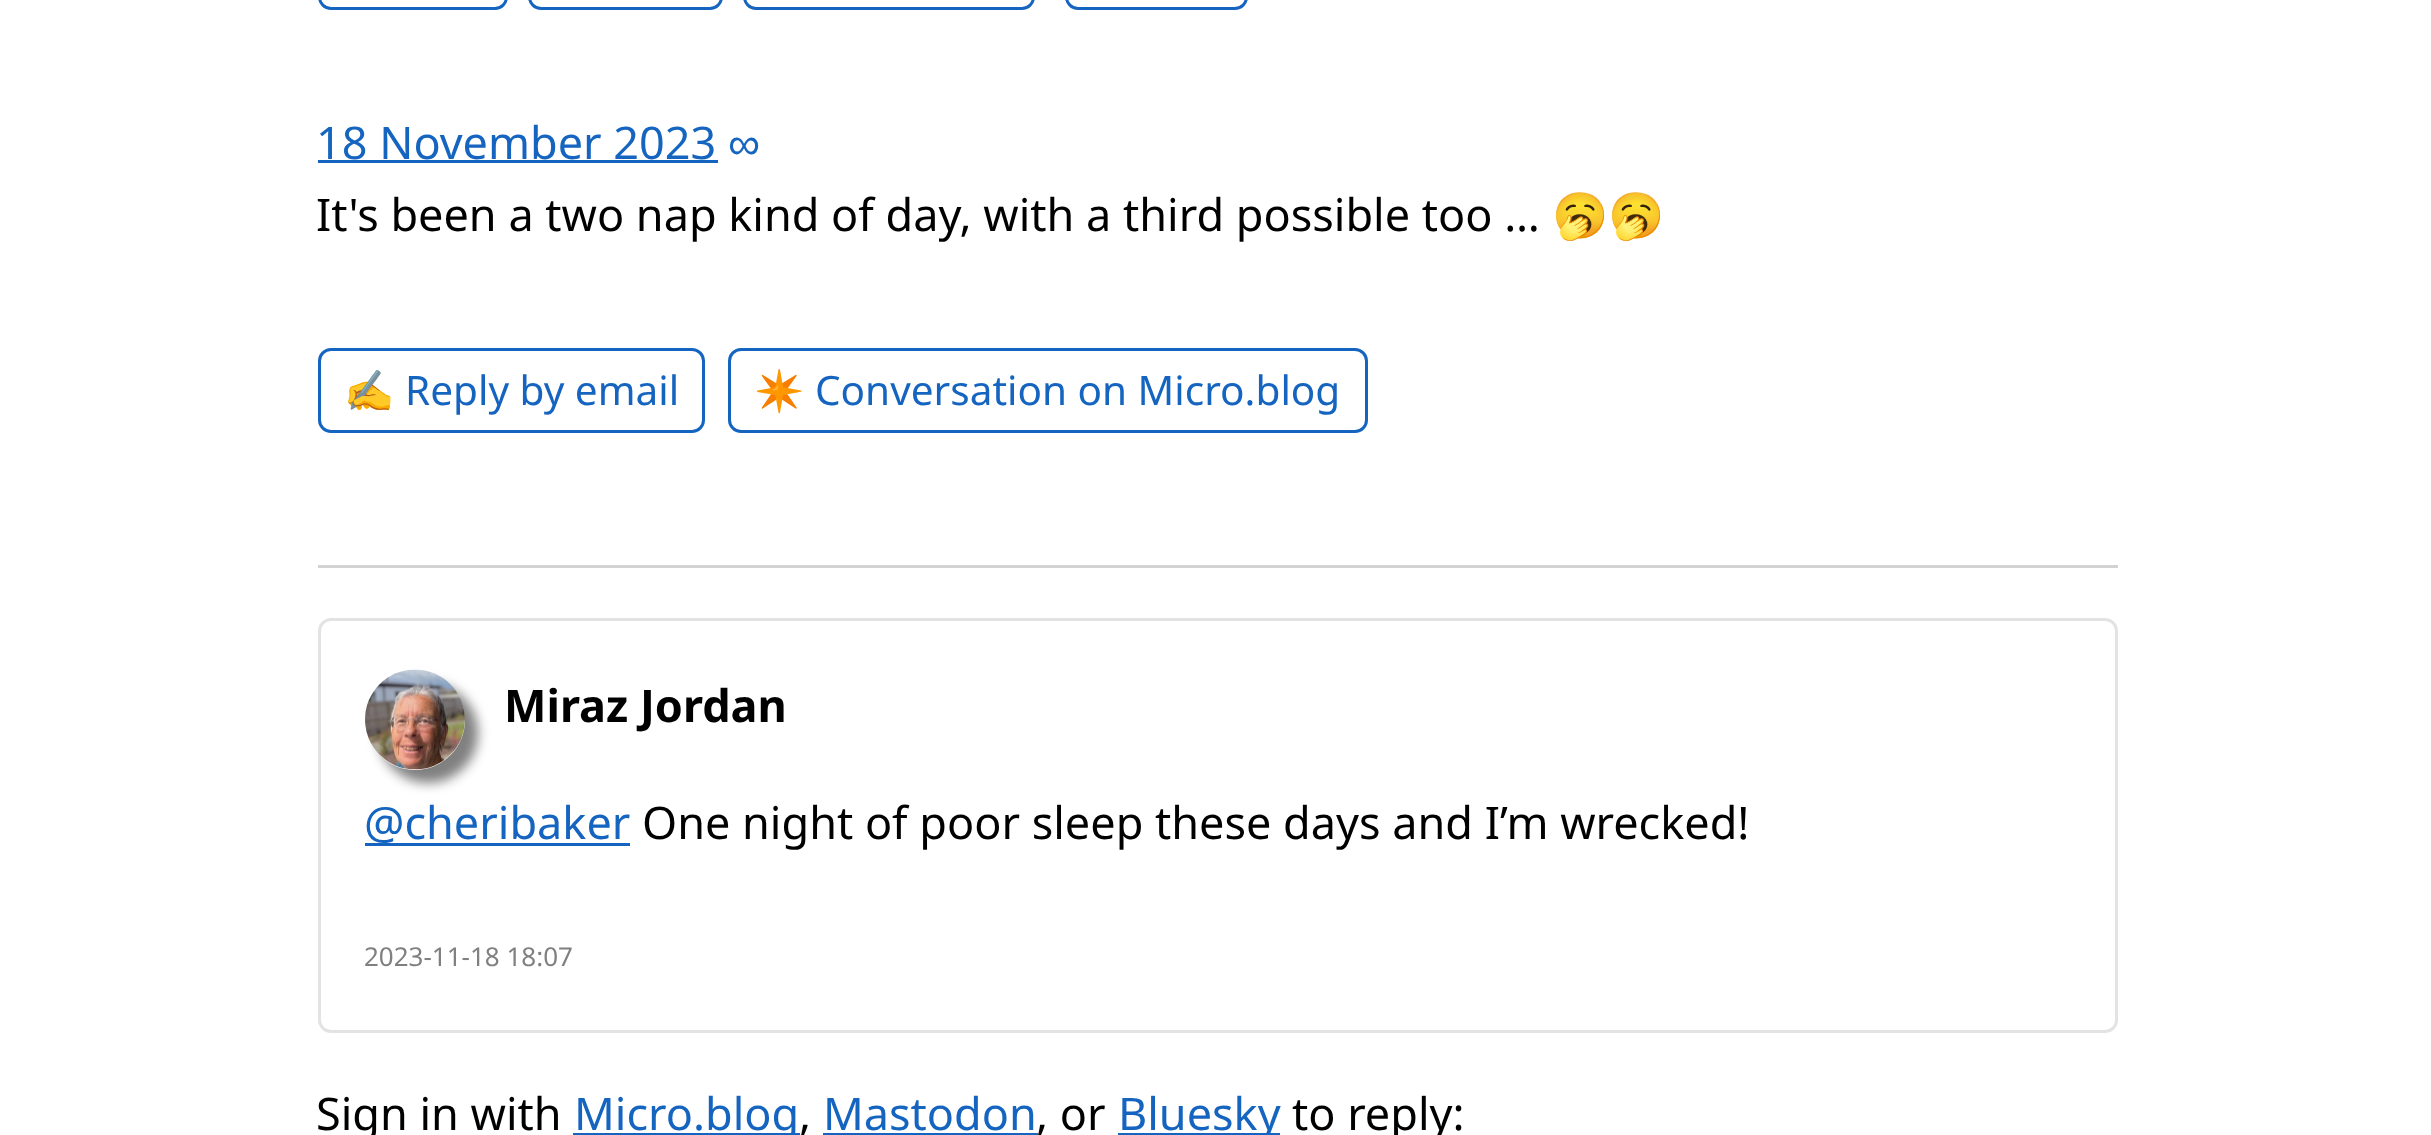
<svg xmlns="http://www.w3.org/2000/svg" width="2431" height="1135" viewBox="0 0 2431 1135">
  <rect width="100%" height="100%" fill="#fff"/>
  <rect x="319.5" y="-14.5" width="187" height="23" rx="11.5" fill="none" stroke="#1565c0" stroke-width="3"/>
  <rect x="529.5" y="-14.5" width="192" height="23" rx="11.5" fill="none" stroke="#1565c0" stroke-width="3"/>
  <rect x="744.5" y="-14.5" width="289" height="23" rx="11.5" fill="none" stroke="#1565c0" stroke-width="3"/>
  <rect x="1066.5" y="-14.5" width="180" height="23" rx="11.5" fill="none" stroke="#1565c0" stroke-width="3"/>
  <path d="M318 160h400v3H318z" fill="#1565c0"/>
  <rect x="319.5" y="349.5" width="384" height="82" rx="11.5" fill="none" stroke="#1565c0" stroke-width="3"/>
  <rect x="729.5" y="349.5" width="637" height="82" rx="11.5" fill="none" stroke="#1565c0" stroke-width="3"/>
  <path d="M318 565h1800v3H318z" fill="#d3d3d3"/>
  <rect x="319.5" y="619.5" width="1797" height="412" rx="11.5" fill="none" stroke="#e3e3e3" stroke-width="3"/>
  <rect x="378" y="683" width="100" height="100" rx="50" fill="#808080" filter="blur(6px)"/>
  <circle cx="415" cy="720" r="50" fill="#fff"/>
  <image x="365" y="669" width="100" height="101" href="img/1.png"/>
  <path d="M365 843h265v3H365z" fill="#1565c0"/>
  <path d="M573 1133h227v2H573z" fill="#1565c0"/>
  <path d="M823 1133h215v2H823z" fill="#1565c0"/>
  <path d="M1118 1133h162v2H1118z" fill="#1565c0"/>
  <text x="316" y="159" font-family="Noto Sans" font-size="45" fill="#1565c0">18 November 2023</text>
  <text x="728" y="159" font-family="Liberation Sans" font-size="45" fill="#1565c0">∞</text>
  <text x="316" y="231" font-family="Noto Sans" font-size="45" fill="#000">It's been a two nap kind of day, with a third possible too …</text>
  <text x="1552" y="231" font-family="Noto Color Emoji" font-size="45" fill="#000">🥱🥱</text>
  <text x="344" y="405" font-family="Noto Color Emoji" font-size="40.5" fill="#1565c0">✍️</text>
  <text x="405" y="405" font-family="Noto Sans" font-size="40.5" fill="#1565c0">Reply by email</text>
  <text x="754" y="405" font-family="Noto Color Emoji" font-size="40.5" fill="#1565c0">✴️</text>
  <text x="815" y="405" font-family="Noto Sans" font-size="40.5" fill="#1565c0">Conversation on Micro.blog</text>
  <text x="504" y="722" font-family="Noto Sans" font-size="45" font-weight="bold" fill="#000">Miraz Jordan</text>
  <text x="364" y="839" font-family="Noto Sans" font-size="45" fill="#1565c0">@cheribaker</text>
  <text x="642" y="839" font-family="Noto Sans" font-size="45" fill="#000">One night of poor sleep these days and I’m wrecked!</text>
  <text x="364" y="966" font-family="Noto Sans" font-size="26" fill="#808080">2023-11-18 18:07</text>
  <text x="316" y="1130" font-family="Noto Sans" font-size="45" fill="#000">Sign in with</text>
  <text x="574" y="1130" font-family="Noto Sans" font-size="45" fill="#1565c0">Micro.blog</text>
  <text x="799" y="1130" font-family="Noto Sans" font-size="45" fill="#000">,</text>
  <text x="823" y="1130" font-family="Noto Sans" font-size="45" fill="#1565c0">Mastodon</text>
  <text x="1036" y="1130" font-family="Noto Sans" font-size="45" fill="#000">, or</text>
  <text x="1118" y="1130" font-family="Noto Sans" font-size="45" fill="#1565c0">Bluesky</text>
  <text x="1292" y="1130" font-family="Noto Sans" font-size="45" fill="#000">to reply:</text>
</svg>
